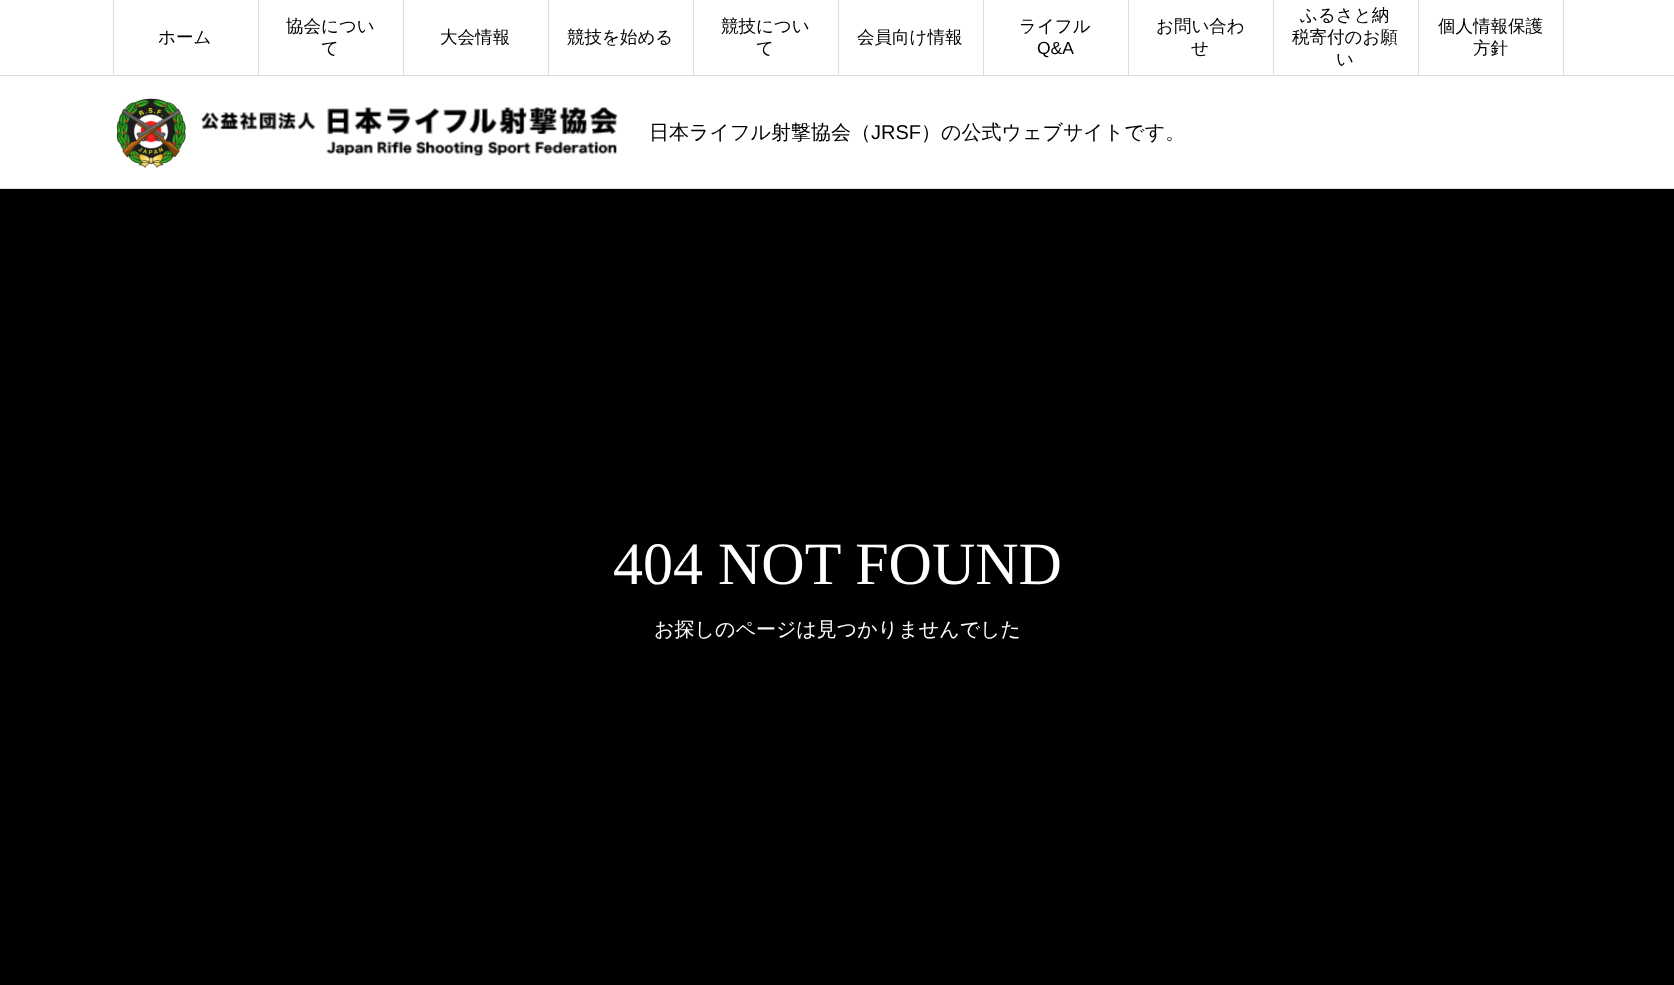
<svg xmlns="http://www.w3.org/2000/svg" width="1674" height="985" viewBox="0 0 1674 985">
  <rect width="100%" height="100%" fill="#000"/>
  <path d="M0 0h1674v188H0z" fill="#fff"/>
  <path d="M0 188h1674v1H0z" fill="#ddd"/>
  <path d="M0 75h1674v1H0z" fill="#ddd"/>
  <path d="M113 0h1v75H113z" fill="#ddd"/>
  <path d="M258 0h1v75H258z" fill="#ddd"/>
  <path d="M403 0h1v75H403z" fill="#ddd"/>
  <path d="M548 0h1v75H548z" fill="#ddd"/>
  <path d="M693 0h1v75H693z" fill="#ddd"/>
  <path d="M838 0h1v75H838z" fill="#ddd"/>
  <path d="M983 0h1v75H983z" fill="#ddd"/>
  <path d="M1128 0h1v75H1128z" fill="#ddd"/>
  <path d="M1273 0h1v75H1273z" fill="#ddd"/>
  <path d="M1418 0h1v75H1418z" fill="#ddd"/>
  <path d="M1563 0h1v75H1563z" fill="#ddd"/>
  <image x="116" y="98" width="502" height="70" href="img/1.png"/>
  <g font-family="WenQuanYi Zen Hei" font-size="17.5" font-weight="500" fill="#000">
    <text x="158" y="43">ホーム</text>
    <text x="286" y="32">協会につい</text>
    <text x="321" y="54">て</text>
    <text x="440" y="43">大会情報</text>
    <text x="567" y="43">競技を始める</text>
    <text x="721" y="32">競技につい</text>
    <text x="756" y="54">て</text>
    <text x="857" y="43">会員向け情報</text>
    <text x="1019" y="32">ライフル</text>
  </g>
  <text x="1037" y="54" font-family="Liberation Sans" font-size="17.5" fill="#000">Q&amp;A</text>
  <g font-family="WenQuanYi Zen Hei" font-size="17.5" font-weight="500" fill="#000">
    <text x="1156" y="32">お問い合わ</text>
    <text x="1191" y="54">せ</text>
    <text x="1300" y="21">ふるさと納</text>
    <text x="1292" y="43">税寄付のお願</text>
    <text x="1336" y="65">い</text>
    <text x="1438" y="32">個人情報保護</text>
    <text x="1473" y="54">方針</text>
  </g>
  <text x="649" y="139" font-family="WenQuanYi Zen Hei" font-size="20" font-weight="500" fill="#000">日本ライフル射撃協会（</text>
  <text x="871" y="139" font-family="Liberation Sans" font-size="20" fill="#000">JRSF</text>
  <text x="921" y="139" font-family="WenQuanYi Zen Hei" font-size="20" font-weight="500" fill="#000">）の公式ウェブサイトです。</text>
  <text x="613" y="584" font-family="Liberation Serif" font-size="60" fill="#fff">404 NOT FOUND</text>
  <text x="654" y="636" font-family="WenQuanYi Zen Hei" font-size="20" font-weight="500" fill="#fff">お探しのページは見つかりませんでした</text>
</svg>
